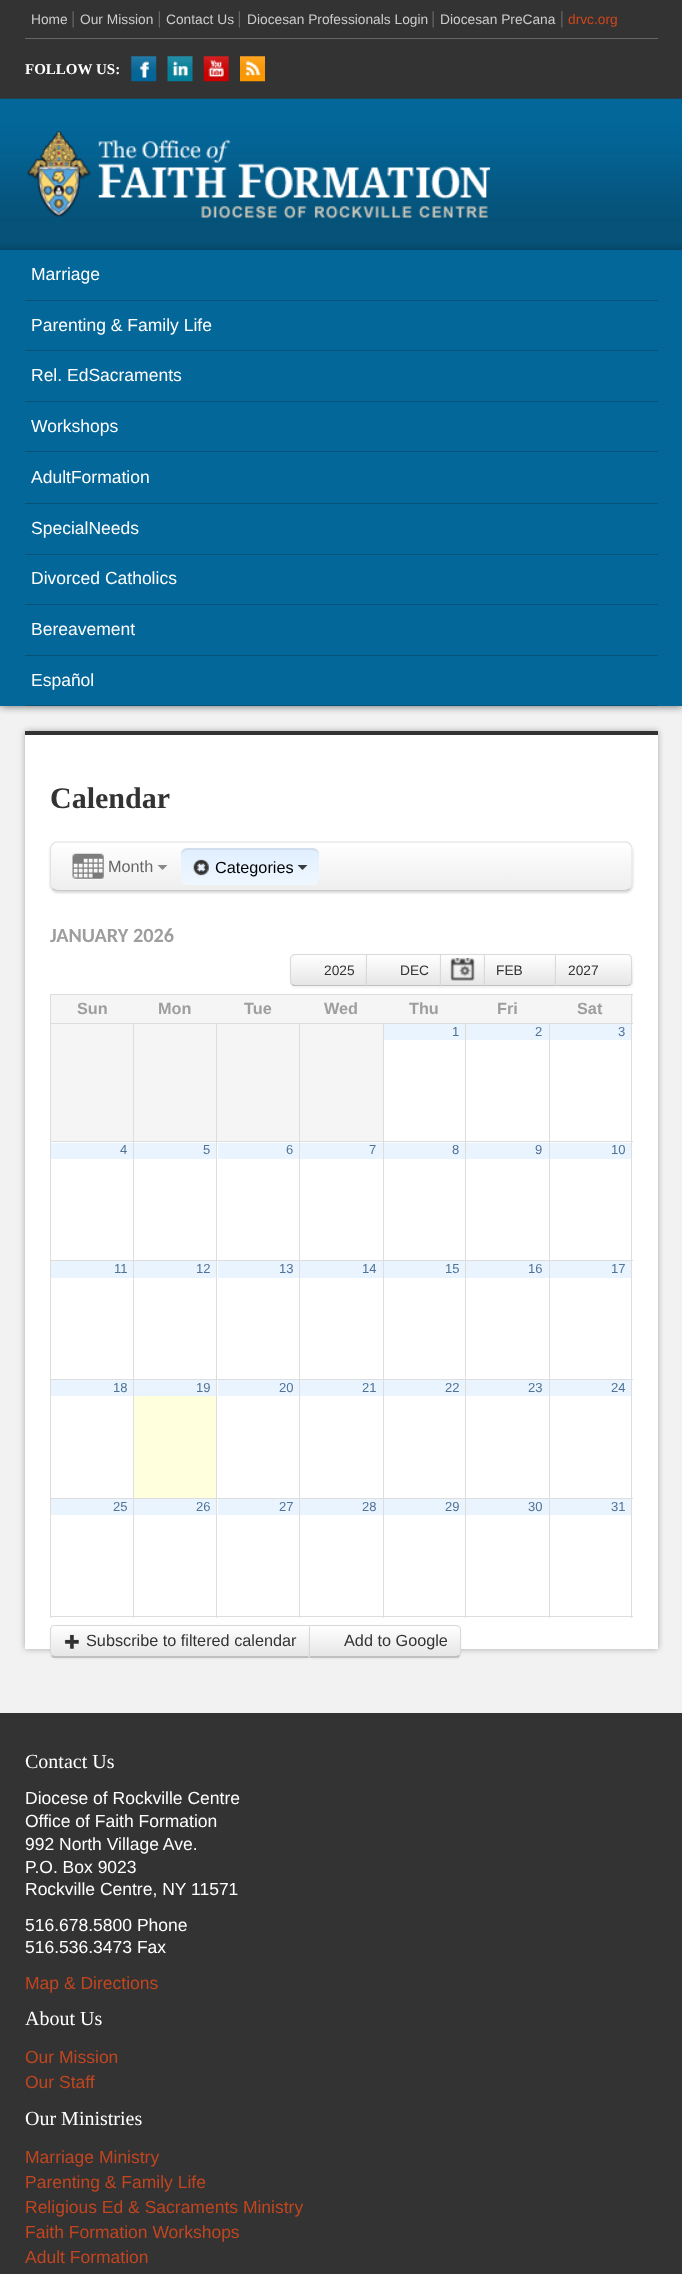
<svg xmlns="http://www.w3.org/2000/svg" width="682" height="2274" viewBox="0 0 682 2274">
  <defs>
    <clipPath id="clip1"><rect x="50" y="841" width="583" height="50" rx="8"/></clipPath>
    <linearGradient id="g1" gradientUnits="userSpaceOnUse" x1="341" y1="843" x2="341" y2="890"><stop offset="0" stop-color="#fff"/><stop offset="1" stop-color="#eee"/></linearGradient>
    <linearGradient id="g2" gradientUnits="userSpaceOnUse" x1="250" y1="848" x2="250" y2="885"><stop offset="0" stop-color="#fff" stop-opacity="0"/><stop offset="1" stop-color="#fff" stop-opacity="0.5"/></linearGradient>
    <clipPath id="clip2"><path d="M295 954H368V986H295C292 986 290 984 290 981V959C290 956 292 954 295 954Z"/></clipPath>
    <linearGradient id="g3" gradientUnits="userSpaceOnUse" x1="329" y1="955" x2="329" y2="985"><stop offset="0" stop-color="#fff"/><stop offset="1" stop-color="#e6e6e6"/></linearGradient>
    <linearGradient id="g4" gradientUnits="userSpaceOnUse" x1="404" y1="955" x2="404" y2="985"><stop offset="0" stop-color="#fff"/><stop offset="1" stop-color="#e6e6e6"/></linearGradient>
    <linearGradient id="g5" gradientUnits="userSpaceOnUse" x1="463" y1="955" x2="463" y2="985"><stop offset="0" stop-color="#fff"/><stop offset="1" stop-color="#e6e6e6"/></linearGradient>
    <linearGradient id="g6" gradientUnits="userSpaceOnUse" x1="520" y1="955" x2="520" y2="985"><stop offset="0" stop-color="#fff"/><stop offset="1" stop-color="#e6e6e6"/></linearGradient>
    <clipPath id="clip3"><path d="M555 954H628C631 954 633 956 633 959V981C633 984 631 986 628 986H555Z"/></clipPath>
    <linearGradient id="g7" gradientUnits="userSpaceOnUse" x1="594" y1="955" x2="594" y2="985"><stop offset="0" stop-color="#fff"/><stop offset="1" stop-color="#e6e6e6"/></linearGradient>
    <clipPath id="clip4"><path d="M55 1625H310V1658H55C52 1658 50 1656 50 1653V1630C50 1627 52 1625 55 1625Z"/></clipPath>
    <linearGradient id="g8" gradientUnits="userSpaceOnUse" x1="180" y1="1626" x2="180" y2="1656"><stop offset="0" stop-color="#fff"/><stop offset="1" stop-color="#e6e6e6"/></linearGradient>
    <clipPath id="clip5"><path d="M309 1625H456C459 1625 461 1627 461 1630V1653C461 1656 459 1658 456 1658H309Z"/></clipPath>
    <linearGradient id="g9" gradientUnits="userSpaceOnUse" x1="385" y1="1626" x2="385" y2="1656"><stop offset="0" stop-color="#fff"/><stop offset="1" stop-color="#e6e6e6"/></linearGradient>
  </defs>
  <rect width="100%" height="100%" fill="#f2f2f2"/>
  <path d="M0 0h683v706H0z" fill="#00000099" filter="blur(4px)"/>
  <path d="M0 0h682v99H0z" fill="#333"/>
  <path d="M25 38h633v1H25z" fill="#666"/>
  <image x="72" y="11" width="2" height="17" href="img/1.png"/>
  <image x="158" y="11" width="2" height="17" href="img/2.png"/>
  <image x="238" y="11" width="2" height="17" href="img/2.png"/>
  <image x="432" y="11" width="2" height="17" href="img/1.png"/>
  <image x="561" y="11" width="2" height="17" href="img/3.png"/>
  <image x="131" y="56" width="26" height="26" href="img/4.png"/>
  <image x="167" y="56" width="26" height="26" href="img/5.png"/>
  <image x="203" y="56" width="26" height="26" href="img/6.png"/>
  <image x="240" y="56" width="25" height="26" href="img/7.png"/>
  <image x="0" y="98" width="682" height="152" href="img/8.png"/>
  <image x="27" y="131" width="463" height="88" href="img/9.png"/>
  <path d="M0 250h682v456H0z" fill="#03679a"/>
  <path d="M25 300h633v1H25z" fill="#065279"/>
  <path d="M25 350h633v1H25z" fill="#065279"/>
  <path d="M25 401h633v1H25z" fill="#065279"/>
  <path d="M25 451h633v1H25z" fill="#065279"/>
  <path d="M25 503h633v1H25z" fill="#065279"/>
  <path d="M25 554h633v1H25z" fill="#065279"/>
  <path d="M25 604h633v1H25z" fill="#065279"/>
  <path d="M25 655h633v1H25z" fill="#065279"/>
  <path d="M25 705h633v1H25z" fill="#065279"/>
  <path d="M25 731h633v918H25z" fill="#0000004d" filter="blur(3px)"/>
  <path d="M25 735h633v914H25z" fill="#fff"/>
  <path d="M25 731h633v4H25z" fill="#333"/>
  <rect x="50" y="843" width="583" height="50" rx="8" fill="#00000026" filter="blur(1px)"/>
  <rect x="50" y="841" width="583" height="50" rx="8" fill="#f8f8f8"/>
  <g clip-path="url(#clip1)">
    <path d="M50 843h583v47H50z" fill="url(#g1)"/>
  </g>
  <path d="M630 888.5C628.5 890 627 890.5 625 890.5H57.5C55.5 890.5 54 890 52.5 888.5" fill="none" stroke="#cbcbcb" stroke-width="1.2"/>
  <path d="M52.5 888.5C51.5 887.5 50.5 885.5 50.5 884V849C50.5 847 51.5 845 52.5 844C54 842.5 55.5 842 57.5 842H625C627 842 628.5 842.5 630 844C631 845 632 847 632 849V884C632 885.5 631 887.5 630 888.5" fill="none" stroke="#e4e4e4" stroke-width="1.2"/>
  <image x="72" y="853" width="32" height="27" href="img/10.png"/>
  <path d="M157.5 865H167.5L162.5 870Z" fill="#8a8a8a"/>
  <rect x="181" y="848" width="138" height="37" rx="6" fill="#e0efff"/>
  <rect x="181" y="848" width="138" height="37" rx="6" fill="url(#g2)"/>
  <path d="M188 850H312C316 850 319 853 319 856V854C319 851 316 848 313 848H187C184 848 181 851 181 854V856C181 853 184 850 188 850Z" fill="#4d4d4d1a"/>
  <image x="193" y="859" width="16" height="17" href="img/11.png"/>
  <path d="M297.5 865H307.5L302.5 870Z" fill="#3a3d40"/>
  <rect x="290" y="955" width="78" height="33" rx="5" fill="#0000000d" filter="blur(1px)"/>
  <g clip-path="url(#clip2)">
    <path d="M290 955h76v30H290z" fill="url(#g3)"/>
  </g>
  <path d="M295 954C294 954 292 954 292 955V956L295 955H366L367 954Z" fill="#d9d9d9"/>
  <path d="M367 986H295C294 986 292 986 292 985V984L295 985H366Z" fill="#c0c0c0"/>
  <path d="M290 959V981C290 982.5 290.5 984 291.5 984.5L292.5 984C291.5 983 291 982 291 981V959C291 958 291.5 957 292.5 956L291.5 955.5C290.5 956 290 957.5 290 959Z" fill="#d9d9d9"/>
  <path d="M366 955h75v33H366z" fill="#0000000d" filter="blur(1px)"/>
  <path d="M367 955h73v30H367z" fill="url(#g4)"/>
  <path d="M366 954h75v1H366z" fill="#d9d9d9"/>
  <path d="M366 985h75v1H366z" fill="#c0c0c0"/>
  <path d="M366 954h1v32H366z" fill="#d9d9d9"/>
  <path d="M440 955h45v33H440z" fill="#0000000d" filter="blur(1px)"/>
  <path d="M441 955h43v30H441z" fill="url(#g5)"/>
  <path d="M440 954h45v1H440z" fill="#d9d9d9"/>
  <path d="M440 985h45v1H440z" fill="#c0c0c0"/>
  <path d="M440 954h1v32H440z" fill="#d9d9d9"/>
  <image x="450" y="958" width="25" height="23" href="img/12.png"/>
  <path d="M484 955h72v33H484z" fill="#0000000d" filter="blur(1px)"/>
  <path d="M485 955h70v30H485z" fill="url(#g6)"/>
  <path d="M484 954h72v1H484z" fill="#d9d9d9"/>
  <path d="M484 985h72v1H484z" fill="#c0c0c0"/>
  <path d="M484 954h1v32H484z" fill="#d9d9d9"/>
  <rect x="555" y="955" width="78" height="33" rx="5" fill="#0000000d" filter="blur(1px)"/>
  <path d="M555 954H628C631 954 633 956 633 959V981C633 984 631 986 628 986H555Z" fill="#f5f5f5"/>
  <g clip-path="url(#clip3)">
    <path d="M556 955h77v30H556z" fill="url(#g7)"/>
  </g>
  <path d="M631 955L628 954H555L556 955H628L630 956Z" fill="#d9d9d9"/>
  <path d="M631 955.5C631.5 956.5 632 957.5 632 959V981C632 982.5 631.5 983.5 631 984.5L630 984C630.5 983 631 982 631 981V959C631 958 630.5 957 630 956Z" fill="#d9d9d9"/>
  <path d="M631 985L628 986H555L556 985H628L630 984Z" fill="#c0c0c0"/>
  <path d="M556 955V985L555 986V954Z" fill="#d9d9d9"/>
  <path d="M50 994h583v1H50z" fill="#ddd"/>
  <path d="M51 995h582v28H51z" fill="#f5f5f5"/>
  <path d="M631 994h1v624H631z" fill="#ddd"/>
  <path d="M50 1616h583v1H50z" fill="#ddd"/>
  <path d="M50 994h1v624H50z" fill="#ddd"/>
  <path d="M51 1024h82v117H51z" fill="#f5f5f5"/>
  <path d="M549 1023h84v1H549z" fill="#ddd"/>
  <path d="M549 1141h84v1H549z" fill="#ddd"/>
  <path d="M549 1260h84v1H549z" fill="#ddd"/>
  <path d="M549 1379h84v1H549z" fill="#ddd"/>
  <path d="M549 1498h84v1H549z" fill="#ddd"/>
  <path d="M549 1498h1v120H549z" fill="#ddd"/>
  <path d="M465 1498h85v1H465z" fill="#ddd"/>
  <path d="M549 1379h1v120H549z" fill="#ddd"/>
  <path d="M465 1379h85v1H465z" fill="#ddd"/>
  <path d="M549 1260h1v120H549z" fill="#ddd"/>
  <path d="M465 1260h85v1H465z" fill="#ddd"/>
  <path d="M549 1141h1v120H549z" fill="#ddd"/>
  <path d="M465 1141h85v1H465z" fill="#ddd"/>
  <path d="M549 1023h1v120H549z" fill="#ddd"/>
  <path d="M465 1023h85v1H465z" fill="#ddd"/>
  <path d="M465 1498h1v120H465z" fill="#ddd"/>
  <path d="M383 1498h83v1H383z" fill="#ddd"/>
  <path d="M465 1379h1v120H465z" fill="#ddd"/>
  <path d="M383 1379h83v1H383z" fill="#ddd"/>
  <path d="M465 1260h1v120H465z" fill="#ddd"/>
  <path d="M383 1260h83v1H383z" fill="#ddd"/>
  <path d="M465 1141h1v120H465z" fill="#ddd"/>
  <path d="M383 1141h83v1H383z" fill="#ddd"/>
  <path d="M465 1023h1v120H465z" fill="#ddd"/>
  <path d="M383 1023h83v1H383z" fill="#ddd"/>
  <path d="M383 1498h1v120H383z" fill="#ddd"/>
  <path d="M299 1498h85v1H299z" fill="#ddd"/>
  <path d="M383 1379h1v120H383z" fill="#ddd"/>
  <path d="M299 1379h85v1H299z" fill="#ddd"/>
  <path d="M383 1260h1v120H383z" fill="#ddd"/>
  <path d="M299 1260h85v1H299z" fill="#ddd"/>
  <path d="M383 1141h1v120H383z" fill="#ddd"/>
  <path d="M299 1141h85v1H299z" fill="#ddd"/>
  <path d="M383 1023h1v120H383z" fill="#ddd"/>
  <path d="M299 1023h85v1H299z" fill="#ddd"/>
  <path d="M299 1498h1v120H299z" fill="#ddd"/>
  <path d="M216 1498h84v1H216z" fill="#ddd"/>
  <path d="M299 1379h1v120H299z" fill="#ddd"/>
  <path d="M216 1379h84v1H216z" fill="#ddd"/>
  <path d="M299 1260h1v120H299z" fill="#ddd"/>
  <path d="M216 1260h84v1H216z" fill="#ddd"/>
  <path d="M299 1141h1v120H299z" fill="#ddd"/>
  <path d="M216 1141h84v1H216z" fill="#ddd"/>
  <path d="M299 1023h1v120H299z" fill="#ddd"/>
  <path d="M216 1023h84v1H216z" fill="#ddd"/>
  <path d="M216 1498h1v120H216z" fill="#ddd"/>
  <path d="M133 1498h85v1H133z" fill="#ddd"/>
  <path d="M216 1379h1v120H216z" fill="#ddd"/>
  <path d="M133 1379h85v1H133z" fill="#ddd"/>
  <path d="M216 1260h1v120H216z" fill="#ddd"/>
  <path d="M133 1260h85v1H133z" fill="#ddd"/>
  <path d="M216 1141h1v120H216z" fill="#ddd"/>
  <path d="M133 1141h85v1H133z" fill="#ddd"/>
  <path d="M216 1023h1v120H216z" fill="#ddd"/>
  <path d="M133 1023h85v1H133z" fill="#ddd"/>
  <path d="M133 1498h1v120H133z" fill="#ddd"/>
  <path d="M50 1498h84v1H50z" fill="#ddd"/>
  <path d="M133 1379h1v120H133z" fill="#ddd"/>
  <path d="M50 1379h84v1H50z" fill="#ddd"/>
  <path d="M133 1260h1v120H133z" fill="#ddd"/>
  <path d="M50 1260h84v1H50z" fill="#ddd"/>
  <path d="M133 1141h1v120H133z" fill="#ddd"/>
  <path d="M50 1141h84v1H50z" fill="#ddd"/>
  <path d="M133 1023h1v120H133z" fill="#ddd"/>
  <path d="M50 1023h84v1H50z" fill="#ddd"/>
  <path d="M134 1024h82v117H134z" fill="#f5f5f5"/>
  <path d="M217 1024h82v117H217z" fill="#f5f5f5"/>
  <path d="M300 1024h83v117H300z" fill="#f5f5f5"/>
  <path d="M384 1024h81v16H384z" fill="#eaf4ff"/>
  <path d="M466 1024h83v16H466z" fill="#eaf4ff"/>
  <path d="M550 1024h81v16H550z" fill="#eaf4ff"/>
  <path d="M51 1143h82v16H51z" fill="#eaf4ff"/>
  <path d="M134 1143h82v16H134z" fill="#eaf4ff"/>
  <path d="M218 1143h81v16H218z" fill="#eaf4ff"/>
  <path d="M300 1143h83v16H300z" fill="#eaf4ff"/>
  <path d="M384 1143h81v16H384z" fill="#eaf4ff"/>
  <path d="M466 1143h83v16H466z" fill="#eaf4ff"/>
  <path d="M550 1143h81v16H550z" fill="#eaf4ff"/>
  <path d="M51 1261h82v17H51z" fill="#eaf4ff"/>
  <path d="M134 1261h82v17H134z" fill="#eaf4ff"/>
  <path d="M218 1261h81v17H218z" fill="#eaf4ff"/>
  <path d="M300 1261h83v17H300z" fill="#eaf4ff"/>
  <path d="M384 1261h81v17H384z" fill="#eaf4ff"/>
  <path d="M466 1261h83v17H466z" fill="#eaf4ff"/>
  <path d="M550 1261h81v17H550z" fill="#eaf4ff"/>
  <path d="M51 1380h82v16H51z" fill="#eaf4ff"/>
  <path d="M134 1396h82v102H134z" fill="#ffd"/>
  <path d="M134 1380h82v16H134z" fill="#eaf4ff"/>
  <path d="M218 1380h81v16H218z" fill="#eaf4ff"/>
  <path d="M300 1380h83v16H300z" fill="#eaf4ff"/>
  <path d="M384 1380h81v16H384z" fill="#eaf4ff"/>
  <path d="M466 1380h83v16H466z" fill="#eaf4ff"/>
  <path d="M550 1380h81v16H550z" fill="#eaf4ff"/>
  <path d="M51 1499h82v16H51z" fill="#eaf4ff"/>
  <path d="M134 1499h82v16H134z" fill="#eaf4ff"/>
  <path d="M218 1499h81v16H218z" fill="#eaf4ff"/>
  <path d="M300 1499h83v16H300z" fill="#eaf4ff"/>
  <path d="M384 1499h81v16H384z" fill="#eaf4ff"/>
  <path d="M466 1499h83v16H466z" fill="#eaf4ff"/>
  <path d="M550 1499h81v16H550z" fill="#eaf4ff"/>
  <rect x="50" y="1626" width="260" height="33" rx="5" fill="#0000000d" filter="blur(1px)"/>
  <path d="M55 1625H310V1658H55C52 1658 50 1656 50 1653V1630C50 1627 52 1625 55 1625Z" fill="#f5f5f5"/>
  <g clip-path="url(#clip4)">
    <path d="M50 1626h259v30H50z" fill="url(#g8)"/>
  </g>
  <path d="M55 1625C54 1625 52 1626 51 1626L52 1627C53 1626 54 1626 55 1626H309L310 1625Z" fill="#d9d9d9"/>
  <path d="M310 1658H53L51 1656L52 1655L55 1656H308Z" fill="#c0c0c0"/>
  <path d="M50 1630V1652C50 1653.5 50.5 1655 51.5 1656L52.5 1655C51.5 1654.5 51 1653.5 51 1652V1630C51 1629 51.5 1628 52 1627L51.5 1626.5C50.5 1627 50 1628.5 50 1630Z" fill="#d9d9d9"/>
  <image x="64" y="1634" width="15" height="16" href="img/13.png"/>
  <rect x="309" y="1626" width="152" height="33" rx="5" fill="#0000000d" filter="blur(1px)"/>
  <path d="M309 1625H456C459 1625 461 1627 461 1630V1653C461 1656 459 1658 456 1658H309Z" fill="#f5f5f5"/>
  <g clip-path="url(#clip5)">
    <path d="M310 1626h151v30H310z" fill="url(#g9)"/>
  </g>
  <path d="M309 1625L310 1626H456L459 1627H460C459 1626 458 1625 456 1625Z" fill="#d9d9d9"/>
  <path d="M459.5 1626.5C460.5 1627.5 461 1628.5 461 1630V1652C461 1653.5 460.5 1655 459.5 1656L459 1655C459.5 1654.5 460 1653.5 460 1652V1630C460 1629 459.5 1628 459 1627.5Z" fill="#d9d9d9"/>
  <path d="M309 1658L310 1656H456L459 1655L460 1656L458 1658Z" fill="#c0c0c0"/>
  <path d="M309 1625V1657L310 1656V1626Z" fill="#d9d9d9"/>
  <path d="M0 1713h682v561H0z" fill="#333"/>
  <g font-family="Liberation Sans" font-size="13.75" fill="#ccc">
    <text x="31" y="24">Home</text>
    <text x="80" y="24">Our Mission</text>
    <text x="166" y="24">Contact Us</text>
    <text x="247" y="24">Diocesan Professionals Login</text>
    <text x="440" y="24">Diocesan PreCana</text>
  </g>
  <text x="568" y="24" font-family="Liberation Sans" font-size="13.75" fill="#d0461c">drvc.org</text>
  <text x="25" y="74" font-family="Liberation Serif" font-size="15" font-weight="bold" fill="#fff">FOLLOW US:</text>
  <g font-family="Liberation Sans" font-size="17.5" fill="#fff">
    <text x="31" y="280">Marriage</text>
    <text x="31" y="331">Parenting &amp; Family Life</text>
    <text x="31" y="381">Rel. EdSacraments</text>
    <text x="31" y="432">Workshops</text>
    <text x="31" y="483">AdultFormation</text>
    <text x="31" y="534">SpecialNeeds</text>
    <text x="31" y="584">Divorced Catholics</text>
    <text x="31" y="635">Bereavement</text>
    <text x="31" y="686">Español</text>
  </g>
  <text x="50" y="808" font-family="Liberation Serif" font-size="30" font-weight="bold" fill="#333">Calendar</text>
  <text x="108" y="872" font-family="Liberation Sans" font-size="16.25" fill="#666">Month</text>
  <text x="215" y="873" font-family="Liberation Sans" font-size="16.25" fill="#000">Categories</text>
  <text x="50" y="942" font-family="Carlito" font-size="20.25" font-weight="bold" fill="#9e9e9e">JANUARY 2026</text>
  <g font-family="Liberation Sans" font-size="13.75" fill="#333">
    <text x="324" y="975">2025</text>
    <text x="400" y="975">DEC</text>
    <text x="496" y="975">FEB</text>
    <text x="568" y="975">2027</text>
  </g>
  <g font-family="Liberation Sans" font-size="16.25" font-weight="bold" fill="#9e9e9e">
    <text x="77" y="1014">Sun</text>
    <text x="158" y="1014">Mon</text>
    <text x="244" y="1014">Tue</text>
    <text x="324" y="1014">Wed</text>
    <text x="409" y="1014">Thu</text>
    <text x="497" y="1014">Fri</text>
    <text x="577" y="1014">Sat</text>
  </g>
  <g font-family="Liberation Sans" font-size="13" fill="#507295">
    <text x="452" y="1036">1</text>
    <text x="535" y="1036">2</text>
    <text x="618" y="1036">3</text>
    <text x="120" y="1154">4</text>
    <text x="203" y="1154">5</text>
    <text x="286" y="1154">6</text>
    <text x="369" y="1154">7</text>
    <text x="452" y="1154">8</text>
    <text x="535" y="1154">9</text>
    <text x="611" y="1154">10</text>
    <text x="114" y="1273">11</text>
    <text x="196" y="1273">12</text>
    <text x="279" y="1273">13</text>
    <text x="362" y="1273">14</text>
    <text x="445" y="1273">15</text>
    <text x="528" y="1273">16</text>
    <text x="611" y="1273">17</text>
    <text x="113" y="1392">18</text>
    <text x="196" y="1392">19</text>
    <text x="279" y="1392">20</text>
    <text x="362" y="1392">21</text>
    <text x="445" y="1392">22</text>
    <text x="528" y="1392">23</text>
    <text x="611" y="1392">24</text>
    <text x="113" y="1511">25</text>
    <text x="196" y="1511">26</text>
    <text x="279" y="1511">27</text>
    <text x="362" y="1511">28</text>
    <text x="445" y="1511">29</text>
    <text x="528" y="1511">30</text>
    <text x="611" y="1511">31</text>
  </g>
  <g font-family="Liberation Sans" font-size="16.25" fill="#333">
    <text x="86" y="1646">Subscribe to filtered calendar</text>
    <text x="344" y="1646">Add to Google</text>
  </g>
  <text x="25" y="1768" font-family="Liberation Serif" font-size="20" fill="#fff">Contact Us</text>
  <g font-family="Liberation Sans" font-size="17.5" fill="#fff">
    <text x="25" y="1804">Diocese of Rockville Centre</text>
    <text x="25" y="1827">Office of Faith Formation</text>
    <text x="25" y="1850">992 North Village Ave.</text>
    <text x="25" y="1873">P.O. Box 9023</text>
    <text x="25" y="1895">Rockville Centre, NY 11571</text>
    <text x="25" y="1931">516.678.5800 Phone</text>
    <text x="25" y="1953">516.536.3473 Fax</text>
  </g>
  <text x="25" y="1989" font-family="Liberation Sans" font-size="17.5" fill="#c14620">Map &amp; Directions</text>
  <text x="25" y="2025" font-family="Liberation Serif" font-size="20" fill="#fff">About Us</text>
  <g font-family="Liberation Sans" font-size="17.5" fill="#c14620">
    <text x="25" y="2063">Our Mission</text>
    <text x="25" y="2088">Our Staff</text>
  </g>
  <text x="25" y="2125" font-family="Liberation Serif" font-size="20" fill="#fff">Our Ministries</text>
  <g font-family="Liberation Sans" font-size="17.5" fill="#c14620">
    <text x="25" y="2163">Marriage Ministry</text>
    <text x="25" y="2188">Parenting &amp; Family Life</text>
    <text x="25" y="2213">Religious Ed &amp; Sacraments Ministry</text>
    <text x="25" y="2238">Faith Formation Workshops</text>
    <text x="25" y="2263">Adult Formation</text>
  </g>
</svg>
